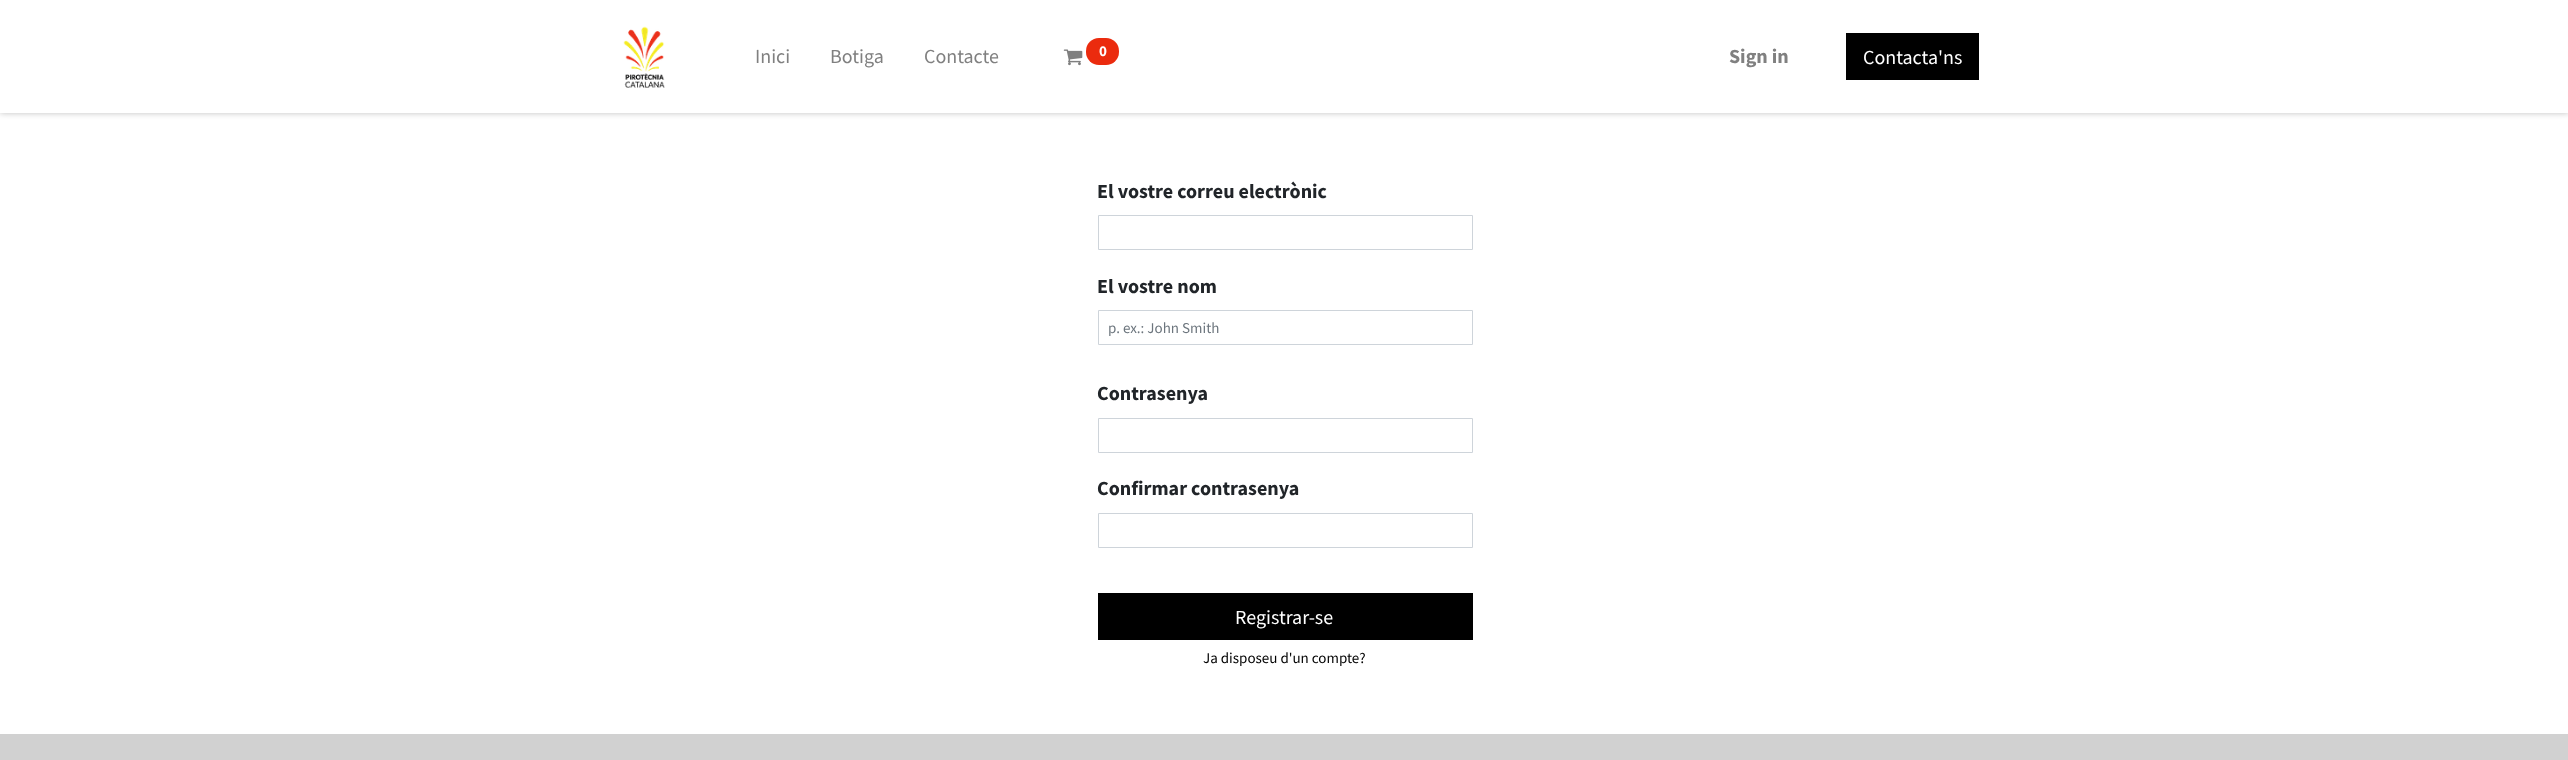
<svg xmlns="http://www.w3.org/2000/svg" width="2568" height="760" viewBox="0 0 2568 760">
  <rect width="100%" height="100%" fill="#fff"/>
  <path d="M0 0h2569v113H0z" fill="#00000040" filter="blur(3px)"/>
  <path d="M0 0h2568v113H0z" fill="#fff"/>
  <image x="623" y="26" width="42" height="62" href="img/1.png"/>
  <image x="1063" y="49" width="20" height="17" href="img/2.png"/>
  <rect x="1086" y="38" width="33" height="27" rx="13" fill="#eb2b0e"/>
  <path d="M1846 33h133v47H1846z" fill="#000"/>
  <path d="M1098.5 215.5h374v34H1098.5z" fill="none" stroke="#ced4da"/>
  <path d="M1098.5 310.5h374v34H1098.5z" fill="none" stroke="#ced4da"/>
  <path d="M1098.5 418.5h374v34H1098.5z" fill="none" stroke="#ced4da"/>
  <path d="M1098.5 513.5h374v34H1098.5z" fill="none" stroke="#ced4da"/>
  <path d="M1098 593h375v47H1098z" fill="#000"/>
  <path d="M0 734h2568v26H0z" fill="#d1d1d1"/>
  <g font-family="Source Sans Pro" font-size="20" fill="#808080">
    <text x="755" y="63">Inici</text>
    <text x="830" y="63">Botiga</text>
    <text x="924" y="63">Contacte</text>
  </g>
  <text x="1099" y="56" font-family="Source Sans Pro" font-size="15" font-weight="bold" fill="#fff">0</text>
  <text x="1729" y="63" font-family="Source Sans Pro" font-size="20" font-weight="bold" fill="#808080">Sign in</text>
  <text x="1863" y="64" font-family="Source Sans Pro" font-size="20" fill="#fff">Contacta'ns</text>
  <g font-family="Source Sans Pro" font-size="20" font-weight="bold" fill="#212529">
    <text x="1097" y="198">El vostre correu electrònic</text>
    <text x="1097" y="293">El vostre nom</text>
  </g>
  <text x="1108" y="333" font-family="Source Sans Pro" font-size="15" fill="#6c757d">p. ex.: John Smith</text>
  <g font-family="Source Sans Pro" font-size="20" font-weight="bold" fill="#212529">
    <text x="1097" y="400">Contrasenya</text>
    <text x="1097" y="495">Confirmar contrasenya</text>
  </g>
  <text x="1235" y="624" font-family="Source Sans Pro" font-size="20" fill="#fff">Registrar-se</text>
  <text x="1203" y="663" font-family="Source Sans Pro" font-size="15" fill="#000">Ja disposeu d'un compte?</text>
</svg>
